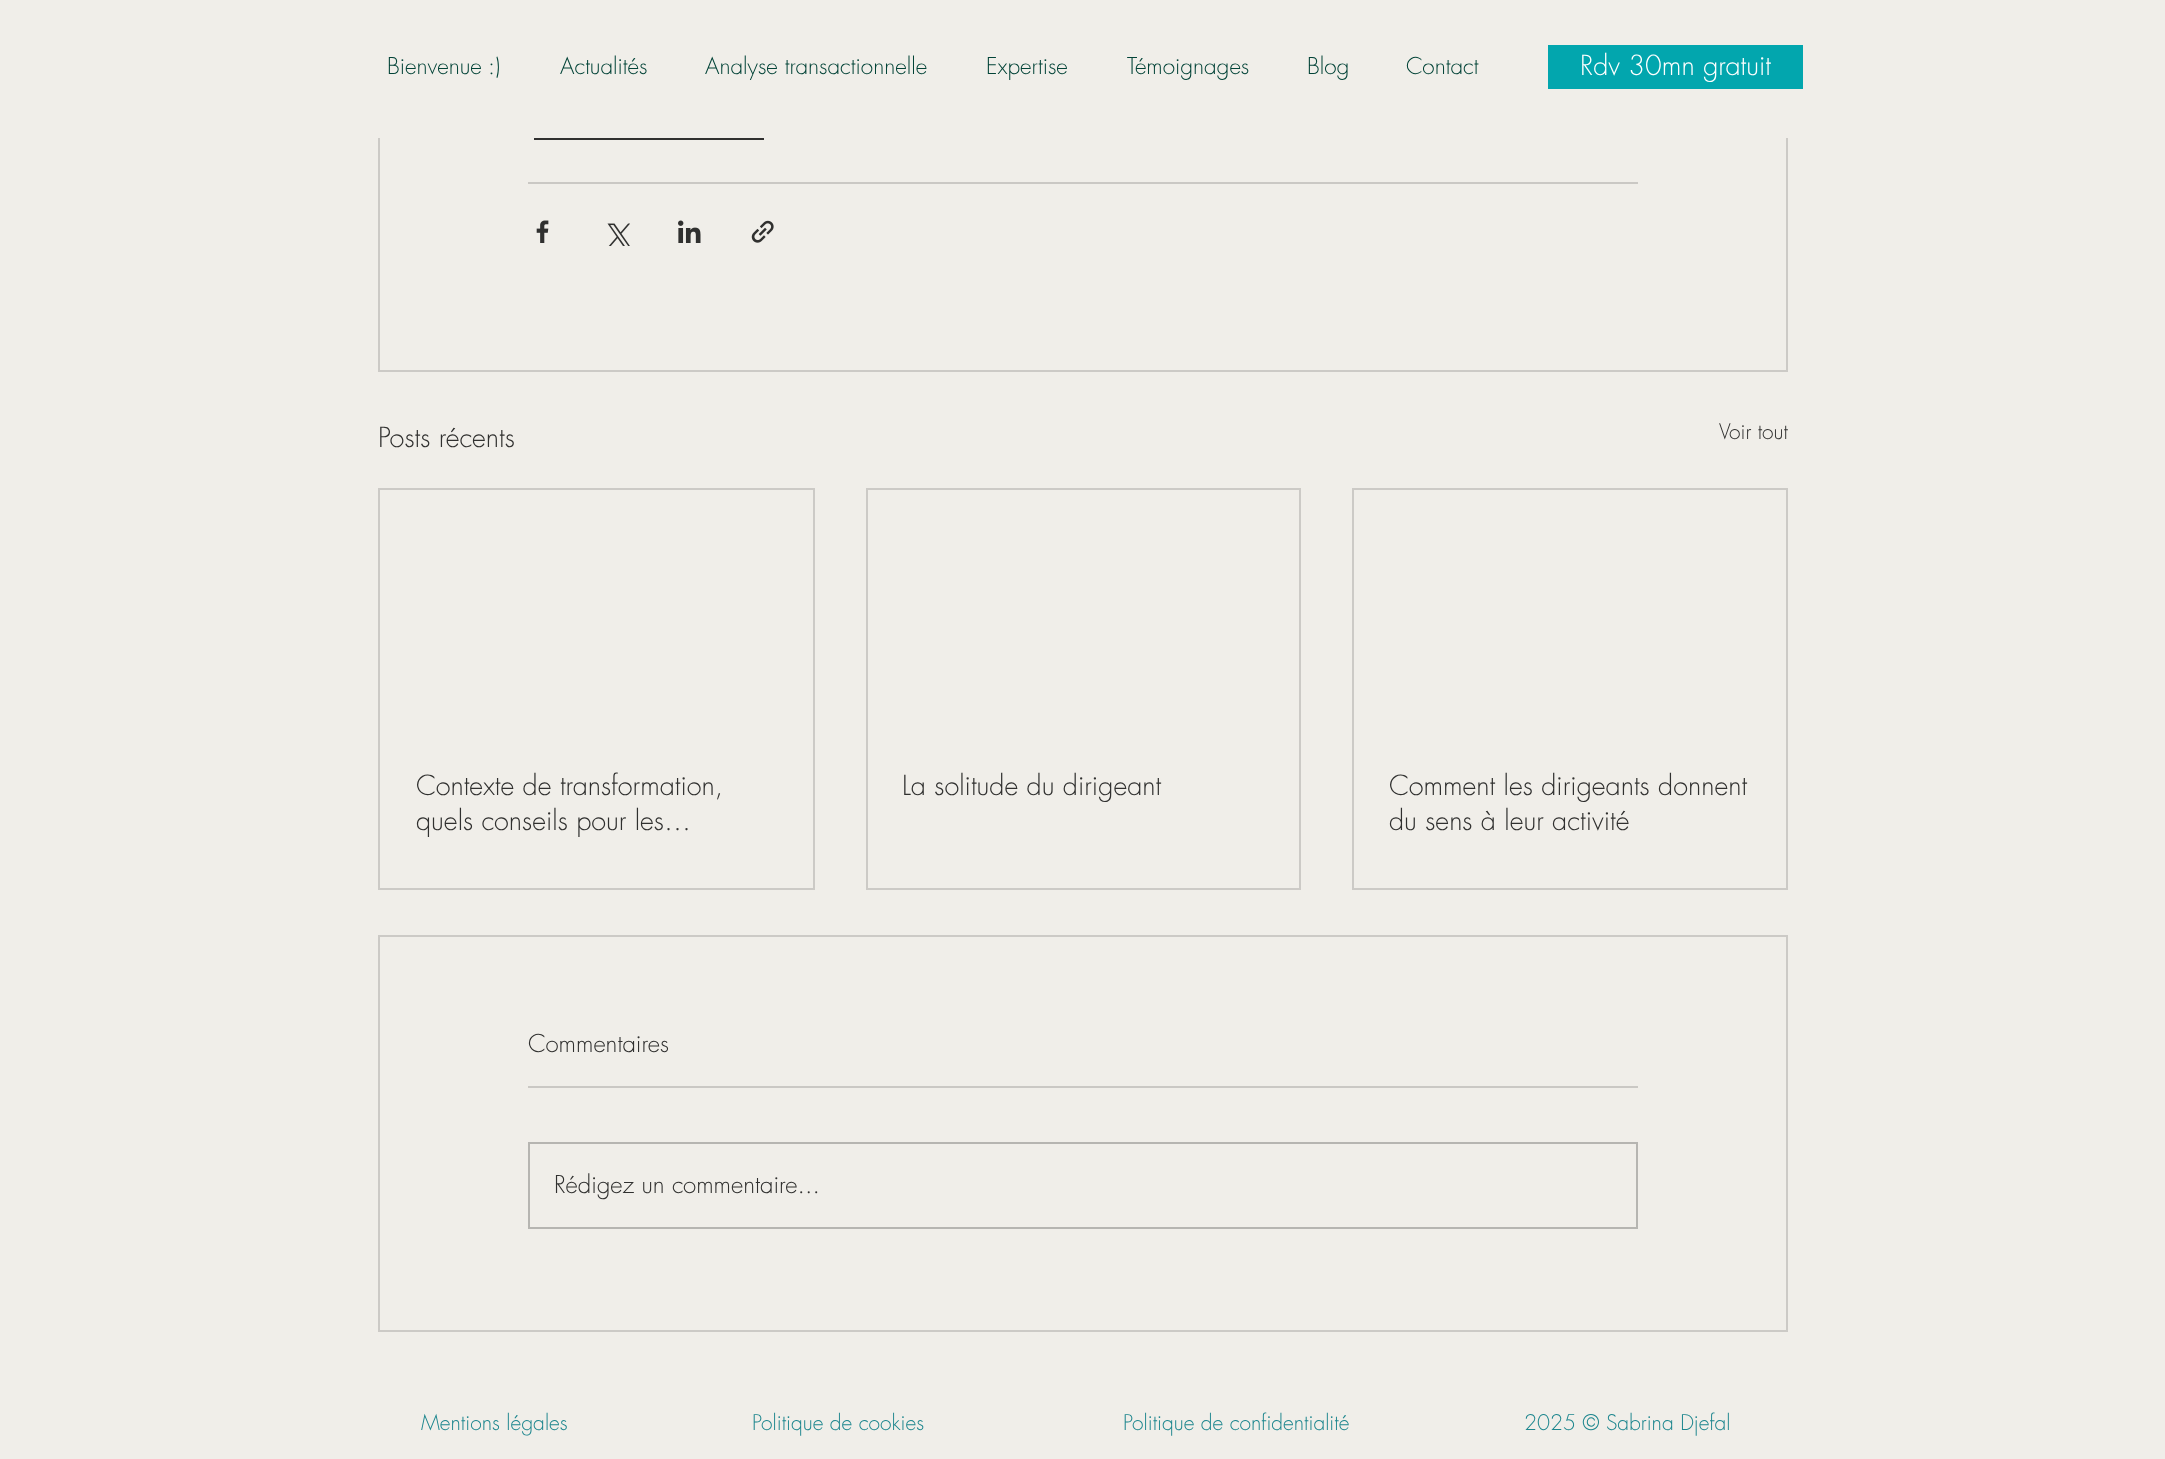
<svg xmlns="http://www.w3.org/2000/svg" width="2165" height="1459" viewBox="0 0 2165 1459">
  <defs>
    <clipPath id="clip1"><path d="M416 768h361v69H416z"/></clipPath>
  </defs>
  <rect width="100%" height="100%" fill="#f0eee9"/>
  <path d="M379 -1h1408v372H379z" fill="none" stroke="#cccac6" stroke-width="2"/>
  <path d="M378 0h1410v138H378z" fill="#f0eee9"/>
  <path d="M1548 45h255v44H1548z" fill="#02a6ae"/>
  <path d="M534 138h230v2H534z" fill="#30302f"/>
  <path d="M528 182h1110v2H528z" fill="#cac8c4"/>
  <image x="536" y="220" width="13" height="23" href="img/1.png"/>
  <image x="607" y="223" width="23" height="23" href="img/2.png"/>
  <image x="678" y="220" width="23" height="23" href="img/3.png"/>
  <image x="751" y="220" width="23" height="23" href="img/4.png"/>
  <path d="M379 489h435v400H379z" fill="none" stroke="#cccac6" stroke-width="2"/>
  <path d="M867 489h433v400H867z" fill="none" stroke="#cccac6" stroke-width="2"/>
  <path d="M1353 489h434v400H1353z" fill="none" stroke="#cccac6" stroke-width="2"/>
  <path d="M379 936h1408v395H379z" fill="none" stroke="#cccac6" stroke-width="2"/>
  <path d="M528 1086h1110v2H528z" fill="#cac8c4"/>
  <path d="M529 1143h1108v85H529z" fill="none" stroke="#b6b5b1" stroke-width="2"/>
  <g font-family="futura" font-size="22.5" font-weight="300" fill="#024337">
    <text x="387" y="74">Bienvenue :)</text>
    <text x="560" y="74">Actualités</text>
    <text x="705" y="74">Analyse transactionnelle</text>
    <text x="986" y="74">Expertise</text>
    <text x="1127" y="74">Témoignages</text>
    <text x="1307" y="74">Blog</text>
    <text x="1406" y="74">Contact</text>
  </g>
  <text x="1580" y="75" font-family="futura" font-size="27" font-weight="300" fill="#fff">Rdv 30mn gratuit</text>
  <text x="378" y="447" font-family="futura" font-size="27" font-weight="300" fill="#30302f">Posts récents</text>
  <text x="1719" y="439" font-family="futura" font-size="21" font-weight="300" fill="#30302f">Voir tout</text>
  <text x="416" y="795" font-family="futura" font-size="27" font-weight="300" fill="#30302f">Contexte de transformation,</text>
  <g clip-path="url(#clip1)">
    <text x="416" y="830" font-family="futura" font-size="27" font-weight="300" fill="#30302f">quels conseils pour les…</text>
  </g>
  <g font-family="futura" font-size="27" font-weight="300" fill="#30302f">
    <text x="902" y="795">La solitude du dirigeant</text>
    <text x="1389" y="795">Comment les dirigeants donnent</text>
    <text x="1389" y="830">du sens à leur activité</text>
  </g>
  <g font-family="futura" font-size="24" font-weight="300" fill="#30302f">
    <text x="528" y="1052">Commentaires</text>
    <text x="554" y="1193">Rédigez un commentaire...</text>
  </g>
  <g font-family="futura" font-size="21" font-weight="300" fill="#1d868e">
    <text x="421" y="1430">Mentions légales</text>
    <text x="752" y="1430">Politique de cookies</text>
    <text x="1123" y="1430">Politique de confidentialité</text>
    <text x="1524" y="1430">2025 © Sabrina Djefal</text>
  </g>
</svg>
